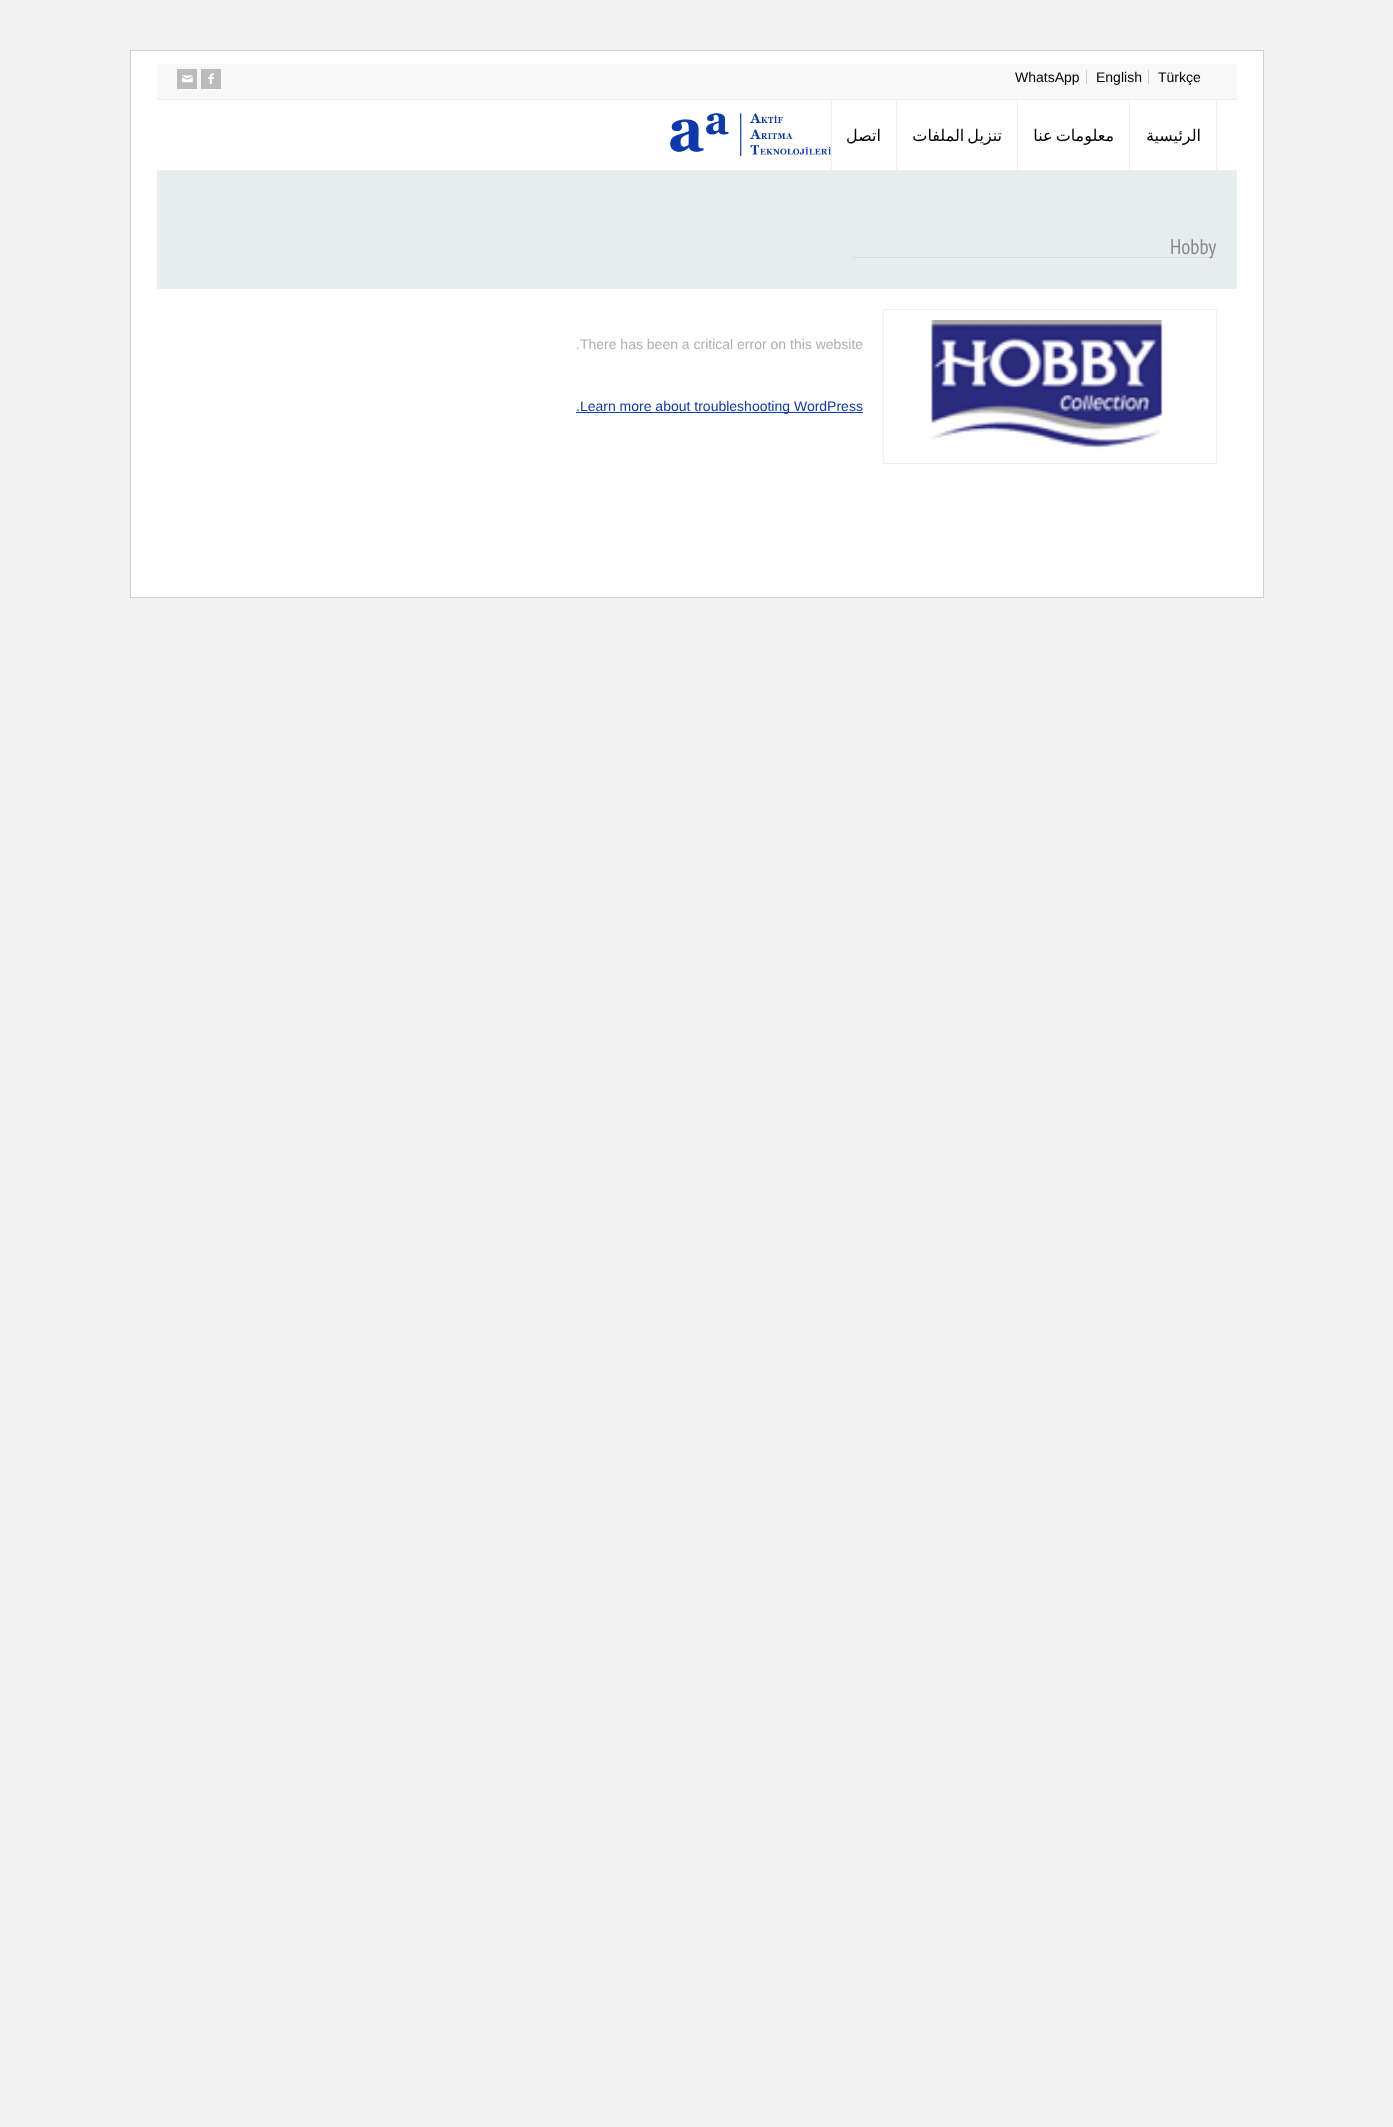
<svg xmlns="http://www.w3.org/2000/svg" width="1393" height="2127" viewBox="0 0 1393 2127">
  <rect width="100%" height="100%" fill="#f1f1f1"/>
  <path d="M130.5 50.5h1133v547H130.5z" fill="#fff" stroke="#ccd0d4"/>
  <path d="M157 64h1080v35H157z" fill="#f8f8f8"/>
  <path d="M157 99h1080v1H157z" fill="#eee"/>
  <path d="M177 69h20v20H177z" fill="#bbb"/>
  <image x="182" y="75" width="11" height="8" href="img/1.png"/>
  <path d="M201 69h20v20H201z" fill="#bbb"/>
  <image x="208" y="73" width="6" height="12" href="img/2.png"/>
  <path d="M1086 70h1v14H1086z" fill="#cdcdcd"/>
  <path d="M1148 70h1v14H1148z" fill="#cdcdcd"/>
  <image x="670" y="113" width="161" height="43" href="img/3.png"/>
  <path d="M896 100h1v70H896z" fill="#eee"/>
  <path d="M831 100h1v70H831z" fill="#eee"/>
  <path d="M1017 100h1v70H1017z" fill="#eee"/>
  <path d="M1129 100h1v70H1129z" fill="#eee"/>
  <path d="M1216 100h1v70H1216z" fill="#eee"/>
  <path d="M157 171h1080v117H157z" fill="#e7ecef"/>
  <path d="M157 170h1080v1H157z" fill="#eee"/>
  <path d="M157 288h1080v1H157z" fill="#eee"/>
  <path d="M853 257h364v1H853z" fill="#dadada"/>
  <path d="M576 412h287v1H576z" fill="#0c39ac"/>
  <path d="M883.5 309.5h333v154H883.5z" fill="none" stroke="#f0f0f0"/>
  <image x="930" y="320" width="233" height="129" href="img/4.png"/>
  <g font-family="Liberation Sans" font-size="14" fill="#000">
    <text x="1015" y="82">WhatsApp</text>
    <text x="1096" y="82">English</text>
    <text x="1158" y="82">Türkçe</text>
  </g>
  <g font-family="DejaVu Sans" font-size="16" direction="rtl" fill="#000">
    <text x="881" y="141">اتصل</text>
    <text x="1002" y="141" word-spacing="-2">تنزيل الملفات</text>
    <text x="1114" y="141" word-spacing="-2">معلومات عنا</text>
    <text x="1201" y="141">الرئيسية</text>
  </g>
  <text x="1170" y="254" font-family="PT Sans Narrow" font-size="21" fill="#888">Hobby</text>
  <text x="576" y="349" font-family="Liberation Sans" font-size="14" fill="#afafaf">.There has been a critical error on this website</text>
  <text x="576" y="411" font-family="Liberation Sans" font-size="14" fill="#0c39ac">.Learn more about troubleshooting WordPress</text>
</svg>
